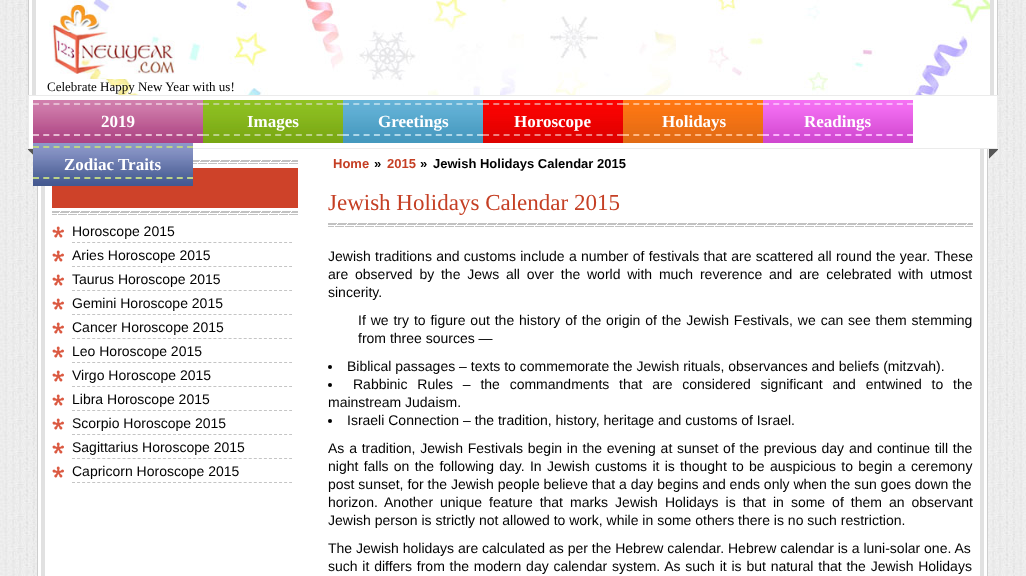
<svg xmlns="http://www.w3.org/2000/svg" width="1026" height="576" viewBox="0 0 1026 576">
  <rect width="100%" height="100%" fill="#fff"/>
  <image x="0" y="0" width="1026" height="576" href="img/1.png"/>
  <path d="M29 0h968v95H29z" fill="#fff"/>
  <path d="M997 0h1v95H997z" fill="#cdcdcd"/>
  <path d="M28 0h1v95H28z" fill="#cdcdcd"/>
  <path d="M990 0h4v95H990z" fill="#e1e1e1"/>
  <path d="M32 0h4v95H32z" fill="#e1e1e1"/>
  <image x="100" y="0" width="890" height="95" href="img/2.png"/>
  <image x="49" y="0" width="126" height="79" href="img/3.png"/>
  <path d="M28.5 95.5h969v53H28.5z" fill="#fff" stroke="#ebebeb"/>
  <image x="33" y="100" width="170" height="43" href="img/4.png"/>
  <path d="M33 104H203" fill="none" stroke="#e6bad2" stroke-width="2" stroke-dasharray="6 4.25"/>
  <path d="M33 135H203" fill="none" stroke="#e6bad2" stroke-width="2" stroke-dasharray="6 4.25"/>
  <image x="203" y="100" width="140" height="43" href="img/5.png"/>
  <path d="M203 104H343" fill="none" stroke="#bbd287" stroke-width="2" stroke-dasharray="6 4.31"/>
  <path d="M203 135H343" fill="none" stroke="#bbd287" stroke-width="2" stroke-dasharray="6 4.31"/>
  <image x="343" y="100" width="140" height="43" href="img/6.png"/>
  <path d="M343 104H483" fill="none" stroke="#add7e9" stroke-width="2" stroke-dasharray="6 4.31"/>
  <path d="M343 135H483" fill="none" stroke="#add7e9" stroke-width="2" stroke-dasharray="6 4.31"/>
  <image x="483" y="100" width="140" height="43" href="img/7.png"/>
  <path d="M483 104H623" fill="none" stroke="#f07e7d" stroke-width="2" stroke-dasharray="6 4.31"/>
  <path d="M483 135H623" fill="none" stroke="#f07e7d" stroke-width="2" stroke-dasharray="6 4.31"/>
  <image x="623" y="100" width="140" height="43" href="img/8.png"/>
  <path d="M623 104H763" fill="none" stroke="#ffb781" stroke-width="2" stroke-dasharray="6 4.31"/>
  <path d="M623 135H763" fill="none" stroke="#ffb781" stroke-width="2" stroke-dasharray="6 4.31"/>
  <image x="763" y="100" width="150" height="43" href="img/9.png"/>
  <path d="M763 104H913" fill="none" stroke="#fab3fa" stroke-width="2" stroke-dasharray="6 4.29"/>
  <path d="M763 135H913" fill="none" stroke="#fab3fa" stroke-width="2" stroke-dasharray="6 4.29"/>
  <path d="M38 149h949v427H38z" fill="#fff"/>
  <path d="M52 168h246v40H52z" fill="#ce4229"/>
  <image x="33" y="143" width="160" height="43" href="img/10.png"/>
  <path d="M33 147H193" fill="none" stroke="#bbd287" stroke-width="2" stroke-dasharray="6 4.27"/>
  <path d="M33 178H193" fill="none" stroke="#bbd287" stroke-width="2" stroke-dasharray="6 4.27"/>
  <image x="28" y="149" width="5" height="6" href="img/11.png"/>
  <image x="989" y="149" width="9" height="10" href="img/12.png"/>
  <path d="M987 149h1v427H987z" fill="#cdcdcd"/>
  <path d="M37 186h1v390H37z" fill="#cdcdcd"/>
  <path d="M980 149h4v427H980z" fill="#e1e1e1"/>
  <path d="M41 186h4v390H41z" fill="#e1e1e1"/>
  <image x="193" y="160" width="105" height="4" href="img/13.png"/>
  <image x="52" y="211" width="246" height="4" href="img/14.png"/>
  <image x="52" y="226" width="12" height="12" href="img/15.png"/>
  <path d="M72 242.5H292" fill="none" stroke="#c5c5c5" stroke-dasharray="3 2.05"/>
  <image x="52" y="250" width="12" height="12" href="img/15.png"/>
  <path d="M72 266.5H292" fill="none" stroke="#c5c5c5" stroke-dasharray="3 2.05"/>
  <image x="52" y="274" width="12" height="12" href="img/15.png"/>
  <path d="M72 290.5H292" fill="none" stroke="#c5c5c5" stroke-dasharray="3 2.05"/>
  <image x="52" y="298" width="12" height="12" href="img/15.png"/>
  <path d="M72 314.5H292" fill="none" stroke="#c5c5c5" stroke-dasharray="3 2.05"/>
  <image x="52" y="322" width="12" height="12" href="img/15.png"/>
  <path d="M72 338.5H292" fill="none" stroke="#c5c5c5" stroke-dasharray="3 2.05"/>
  <image x="52" y="346" width="12" height="12" href="img/15.png"/>
  <path d="M72 362.5H292" fill="none" stroke="#c5c5c5" stroke-dasharray="3 2.05"/>
  <image x="52" y="370" width="12" height="12" href="img/15.png"/>
  <path d="M72 386.5H292" fill="none" stroke="#c5c5c5" stroke-dasharray="3 2.05"/>
  <image x="52" y="394" width="12" height="12" href="img/15.png"/>
  <path d="M72 410.5H292" fill="none" stroke="#c5c5c5" stroke-dasharray="3 2.05"/>
  <image x="52" y="418" width="12" height="12" href="img/15.png"/>
  <path d="M72 434.5H292" fill="none" stroke="#c5c5c5" stroke-dasharray="3 2.05"/>
  <image x="52" y="442" width="12" height="12" href="img/15.png"/>
  <path d="M72 458.5H292" fill="none" stroke="#c5c5c5" stroke-dasharray="3 2.05"/>
  <image x="52" y="466" width="12" height="12" href="img/15.png"/>
  <path d="M72 482.5H292" fill="none" stroke="#c5c5c5" stroke-dasharray="3 2.05"/>
  <image x="328" y="223" width="645" height="4" href="img/16.png"/>
  <circle cx="330" cy="367" r="2" fill="#000"/>
  <circle cx="330" cy="385" r="2" fill="#000"/>
  <circle cx="330" cy="421" r="2" fill="#000"/>
  <text x="47" y="91" font-family="Liberation Serif" font-size="13" fill="#000">Celebrate Happy New Year with us!</text>
  <g font-family="Liberation Serif" font-size="17" font-weight="bold" fill="#fff">
    <text x="101" y="127">2019</text>
    <text x="247" y="127">Images</text>
    <text x="378" y="127">Greetings</text>
    <text x="514" y="127">Horoscope</text>
    <text x="662" y="127">Holidays</text>
    <text x="804" y="127">Readings</text>
    <text x="64" y="170">Zodiac Traits</text>
  </g>
  <g font-family="Liberation Sans" font-size="14" fill="#000">
    <text x="72" y="236">Horoscope 2015</text>
    <text x="72" y="260">Aries Horoscope 2015</text>
    <text x="72" y="284">Taurus Horoscope 2015</text>
    <text x="72" y="308">Gemini Horoscope 2015</text>
    <text x="72" y="332">Cancer Horoscope 2015</text>
    <text x="72" y="356">Leo Horoscope 2015</text>
    <text x="72" y="380">Virgo Horoscope 2015</text>
    <text x="72" y="404">Libra Horoscope 2015</text>
    <text x="72" y="428">Scorpio Horoscope 2015</text>
    <text x="72" y="452">Sagittarius Horoscope 2015</text>
    <text x="72" y="476">Capricorn Horoscope 2015</text>
  </g>
  <text x="333" y="168" font-family="Liberation Sans" font-size="13" font-weight="bold" fill="#c53f24">Home</text>
  <text x="374" y="168" font-family="Liberation Sans" font-size="13" font-weight="bold" fill="#000">»</text>
  <text x="387" y="168" font-family="Liberation Sans" font-size="13" font-weight="bold" fill="#c53f24">2015</text>
  <g font-family="Liberation Sans" font-size="13" font-weight="bold" fill="#000">
    <text x="420" y="168">»</text>
    <text x="433" y="168">Jewish Holidays Calendar 2015</text>
  </g>
  <text x="328" y="210" font-family="Liberation Serif" font-size="23" fill="#c53f24">Jewish Holidays Calendar 2015</text>
  <g font-family="Liberation Sans" font-size="14" fill="#000">
    <text x="328" y="261" word-spacing="0.4">Jewish traditions and customs include a number of festivals that are scattered all round the year. These</text>
    <text x="328" y="279" word-spacing="2.9">are observed by the Jews all over the world with much reverence and are celebrated with utmost</text>
    <text x="328" y="297">sincerity.</text>
    <text x="358" y="325" word-spacing="1">If we try to figure out the history of the origin of the Jewish Festivals, we can see them stemming</text>
    <text x="358" y="343">from three sources —</text>
    <text x="347" y="371">Biblical passages – texts to commemorate the Jewish rituals, observances and beliefs (mitzvah).</text>
    <text x="353" y="389" word-spacing="5.9">Rabbinic Rules – the commandments that are considered significant and entwined to the</text>
    <text x="328" y="407">mainstream Judaism.</text>
    <text x="347" y="425">Israeli Connection – the tradition, history, heritage and customs of Israel.</text>
    <text x="328" y="453" word-spacing="0.9">As a tradition, Jewish Festivals begin in the evening at sunset of the previous day and continue till the</text>
    <text x="328" y="471" word-spacing="1.4">night falls on the following day. In Jewish customs it is thought to be auspicious to begin a ceremony</text>
    <text x="328" y="489">post sunset, for the Jewish people believe that a day begins and ends only when the sun goes down the</text>
    <text x="328" y="507" word-spacing="3.1">horizon. Another unique feature that marks Jewish Holidays is that in some of them an observant</text>
    <text x="328" y="525">Jewish person is strictly not allowed to work, while in some others there is no such restriction.</text>
    <text x="328" y="553">The Jewish holidays are calculated as per the Hebrew calendar. Hebrew calendar is a luni-solar one. As</text>
    <text x="328" y="571" word-spacing="0.9">such it differs from the modern day calendar system. As such it is but natural that the Jewish Holidays</text>
  </g>
</svg>
